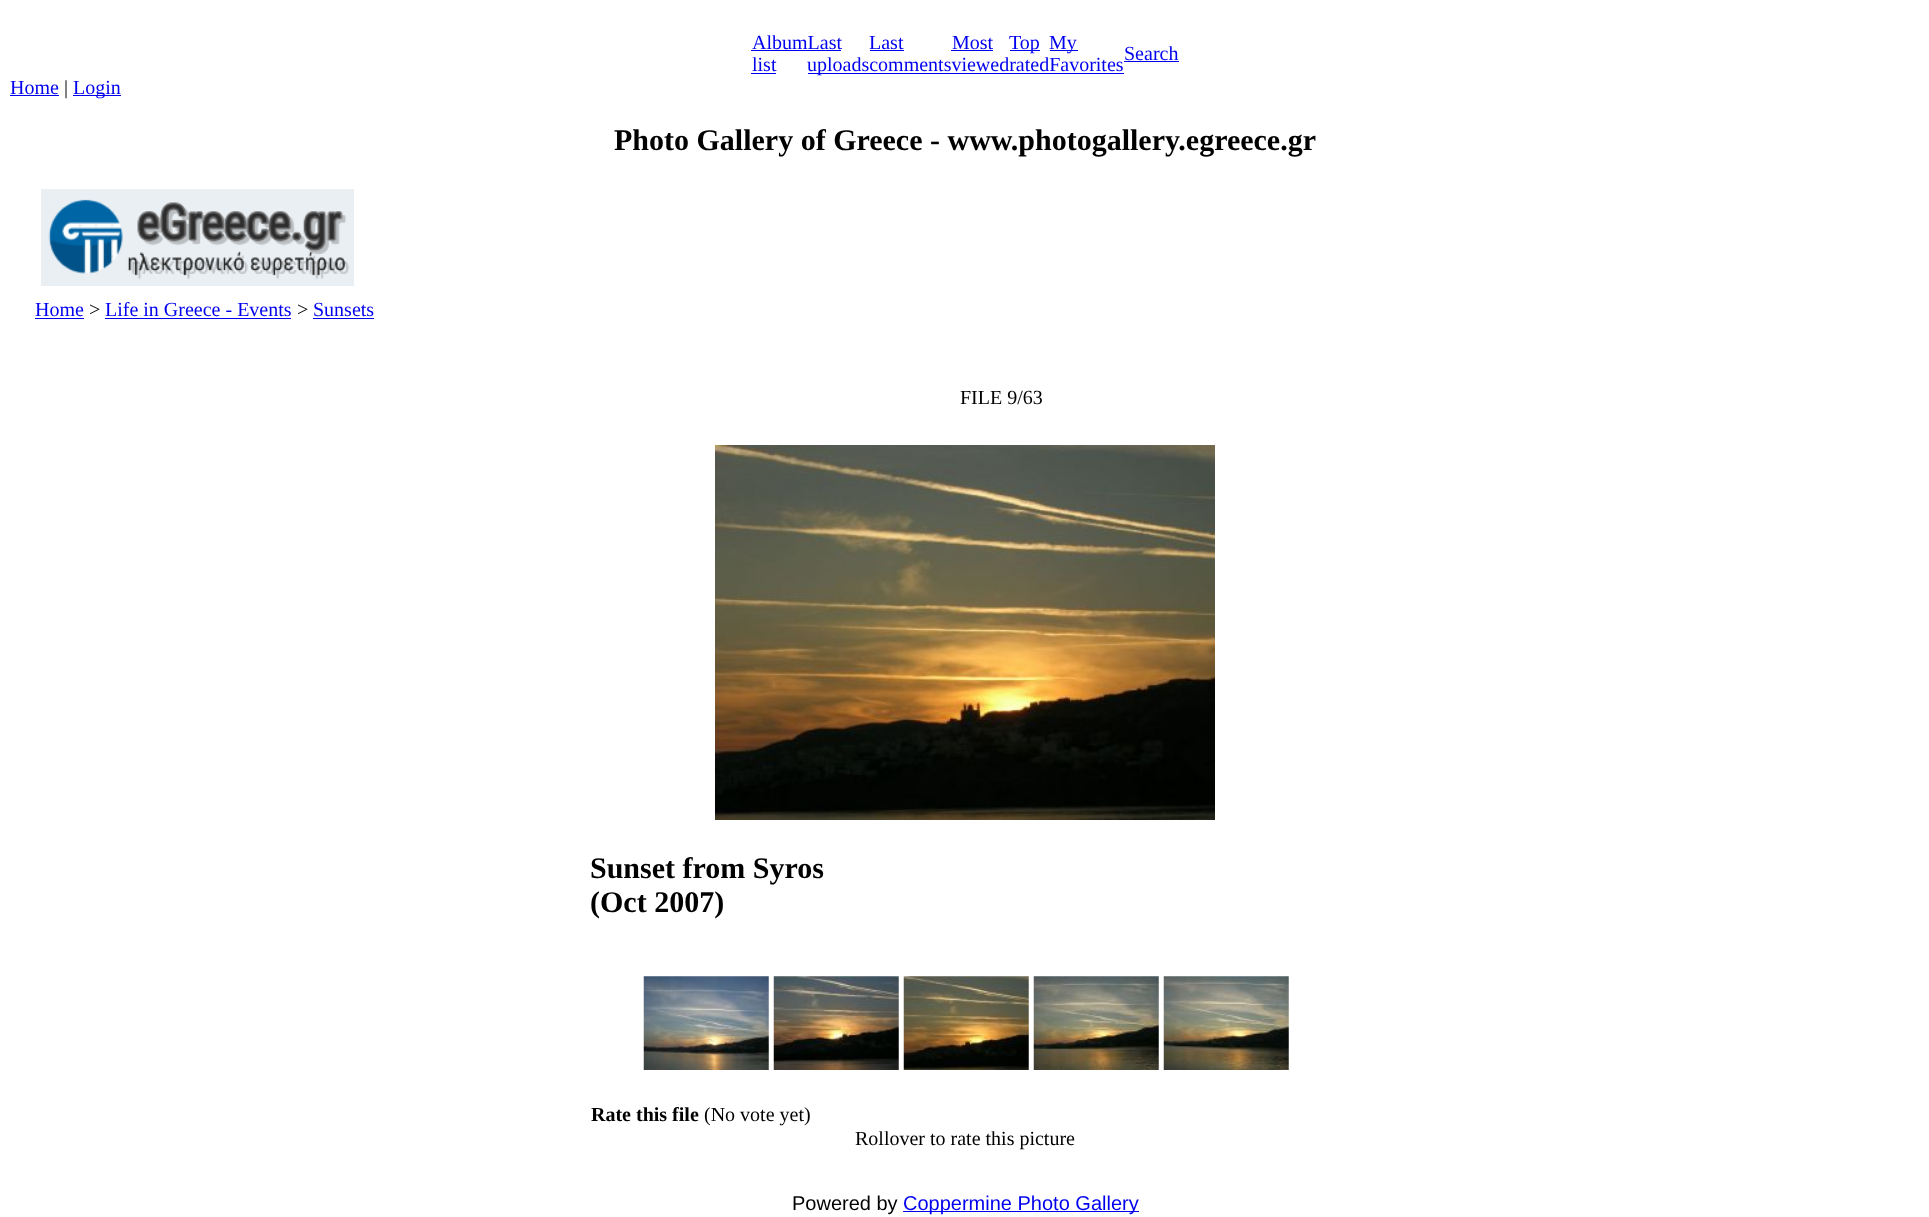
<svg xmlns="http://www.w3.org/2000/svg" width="1929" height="1217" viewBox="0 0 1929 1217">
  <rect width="100%" height="100%" fill="#fff"/>
  <path d="M751 50h90v1H751z" fill="#00e"/>
  <path d="M751 73h25v1H751z" fill="#00e"/>
  <path d="M870 50h34v1H870z" fill="#00e"/>
  <path d="M951 50h42v1H951z" fill="#00e"/>
  <path d="M1010 50h30v1H1010z" fill="#00e"/>
  <path d="M1050 50h28v1H1050z" fill="#00e"/>
  <path d="M1124 61h55v1H1124z" fill="#00e"/>
  <path d="M808 73h316v1H808z" fill="#00e"/>
  <path d="M10 95h49v1H10z" fill="#00e"/>
  <path d="M73 95h48v1H73z" fill="#00e"/>
  <path d="M41 189h313v97H41z" fill="#eaeff3"/>
  <image x="48" y="199" width="301" height="80" href="img/1.png"/>
  <path d="M35 318h49v1H35z" fill="#00e"/>
  <path d="M105 318h186v1H105z" fill="#00e"/>
  <path d="M313 318h61v1H313z" fill="#00e"/>
  <image x="715" y="445" width="500" height="375" href="img/2.png"/>
  <image x="643" y="976" width="126" height="94" href="img/3.png"/>
  <image x="773" y="976" width="126" height="94" href="img/4.png"/>
  <image x="903" y="976" width="126" height="94" href="img/5.png"/>
  <image x="1033" y="976" width="126" height="94" href="img/6.png"/>
  <image x="1163" y="976" width="126" height="94" href="img/7.png"/>
  <path d="M903 1211h236v1H903z" fill="#00e"/>
  <g font-family="Liberation Serif" font-size="20" fill="#00e">
    <text x="752" y="49">AlbumLast</text>
    <text x="752" y="71">list</text>
    <text x="869" y="49">Last</text>
    <text x="952" y="49">Most</text>
    <text x="1009" y="49">Top</text>
    <text x="1049" y="49">My</text>
    <text x="1124" y="60">Search</text>
    <text x="807" y="71">uploadscommentsviewedratedFavorites</text>
    <text x="10" y="94">Home</text>
  </g>
  <text x="64" y="94" font-family="Liberation Serif" font-size="20" fill="#000">|</text>
  <text x="73" y="94" font-family="Liberation Serif" font-size="20" fill="#00e">Login</text>
  <text x="614" y="150" font-family="Liberation Serif" font-size="30" font-weight="bold" fill="#000">Photo Gallery of Greece - www.photogallery.egreece.gr</text>
  <text x="35" y="316" font-family="Liberation Serif" font-size="20" fill="#00e">Home</text>
  <text x="89" y="316" font-family="Liberation Serif" font-size="20" fill="#000">&gt;</text>
  <text x="105" y="316" font-family="Liberation Serif" font-size="20" fill="#00e">Life in Greece - Events</text>
  <text x="297" y="316" font-family="Liberation Serif" font-size="20" fill="#000">&gt;</text>
  <text x="313" y="316" font-family="Liberation Serif" font-size="20" fill="#00e">Sunsets</text>
  <text x="960" y="404" font-family="Liberation Serif" font-size="20" fill="#000">FILE 9/63</text>
  <g font-family="Liberation Serif" font-size="30" font-weight="bold" fill="#000">
    <text x="590" y="878">Sunset from Syros</text>
    <text x="590" y="912">(Oct 2007)</text>
  </g>
  <text x="591" y="1121" font-family="Liberation Serif" font-size="20" font-weight="bold" fill="#000">Rate this file</text>
  <g font-family="Liberation Serif" font-size="20" fill="#000">
    <text x="704" y="1121">(No vote yet)</text>
    <text x="855" y="1145">Rollover to rate this picture</text>
  </g>
  <text x="792" y="1210" font-family="Liberation Sans" font-size="20" fill="#000">Powered by</text>
  <text x="903" y="1210" font-family="Liberation Sans" font-size="20" fill="#00e">Coppermine Photo Gallery</text>
</svg>
